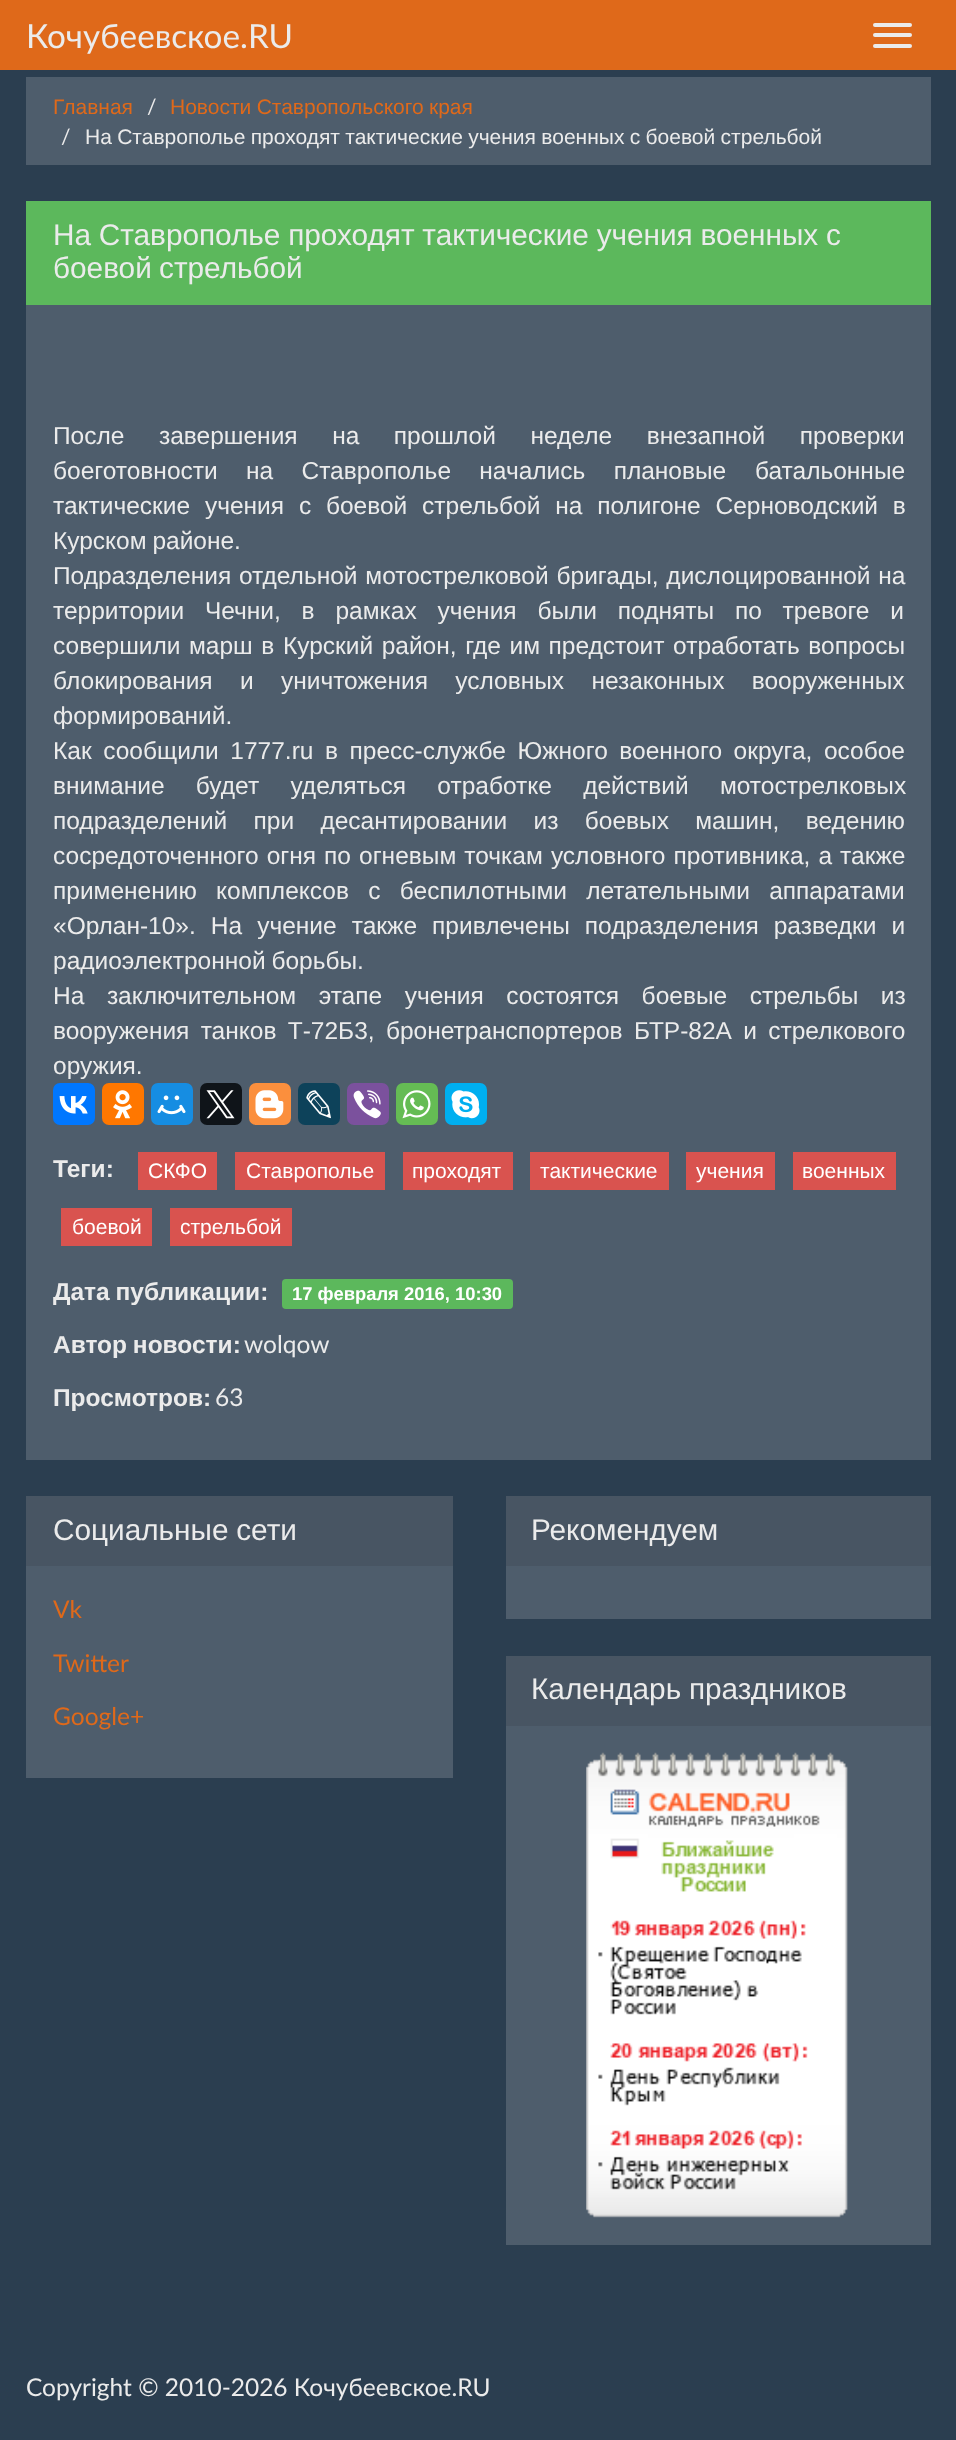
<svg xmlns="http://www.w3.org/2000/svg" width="956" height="2440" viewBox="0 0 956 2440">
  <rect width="100%" height="100%" fill="#2b3e50"/>
  <path d="M0 0h956v70H0z" fill="#df691a"/>
  <rect x="873" y="23" width="39" height="4" rx="2" fill="#ebebeb"/>
  <rect x="873" y="33" width="39" height="4" rx="2" fill="#ebebeb"/>
  <rect x="873" y="44" width="39" height="4" rx="2" fill="#ebebeb"/>
  <path d="M26 77h905v88H26z" fill="#4e5d6c"/>
  <path d="M26 305h905v1155H26z" fill="#4e5d6c"/>
  <path d="M26 201h905v104H26z" fill="#5cb85c"/>
  <rect x="53" y="1083" width="42" height="42" rx="7" fill="#07f"/>
  <image x="59" y="1096" width="29" height="18" href="img/1.png"/>
  <rect x="102" y="1083" width="42" height="42" rx="7" fill="#f70"/>
  <image x="113" y="1090" width="19" height="29" href="img/2.png"/>
  <rect x="151" y="1083" width="42" height="42" rx="7" fill="#168de2"/>
  <image x="157" y="1095" width="29" height="20" href="img/3.png"/>
  <rect x="200" y="1083" width="42" height="42" rx="7" fill="#0f1419"/>
  <image x="206" y="1090" width="29" height="29" href="img/4.png"/>
  <rect x="249" y="1083" width="42" height="42" rx="7" fill="#fb8f3d"/>
  <image x="255" y="1090" width="29" height="29" href="img/5.png"/>
  <rect x="298" y="1083" width="42" height="42" rx="7" fill="#0d425a"/>
  <image x="306" y="1090" width="25" height="29" href="img/6.png"/>
  <rect x="347" y="1083" width="42" height="42" rx="7" fill="#7b519d"/>
  <image x="353" y="1090" width="28" height="29" href="img/7.png"/>
  <rect x="396" y="1083" width="42" height="42" rx="7" fill="#65bc54"/>
  <image x="402" y="1090" width="29" height="29" href="img/8.png"/>
  <rect x="445" y="1083" width="42" height="42" rx="7" fill="#00aff0"/>
  <image x="451" y="1090" width="29" height="29" href="img/9.png"/>
  <path d="M138 1152h79v38H138z" fill="#d9534f"/>
  <path d="M235 1152h150v38H235z" fill="#d9534f"/>
  <path d="M403 1152h110v38H403z" fill="#d9534f"/>
  <path d="M530 1152h139v38H530z" fill="#d9534f"/>
  <path d="M686 1152h89v38H686z" fill="#d9534f"/>
  <path d="M793 1152h103v38H793z" fill="#d9534f"/>
  <path d="M61 1208h91v38H61z" fill="#d9534f"/>
  <path d="M170 1208h122v38H170z" fill="#d9534f"/>
  <rect x="282" y="1279" width="231" height="30" rx="4" fill="#5cb85c"/>
  <path d="M26 1566h427v212H26z" fill="#4e5d6c"/>
  <path d="M26 1496h427v70H26z" fill="#485563"/>
  <path d="M506 1566h425v53H506z" fill="#4e5d6c"/>
  <path d="M506 1496h425v70H506z" fill="#485563"/>
  <path d="M506 1726h425v519H506z" fill="#4e5d6c"/>
  <path d="M506 1656h425v70H506z" fill="#485563"/>
  <image x="586" y="1752" width="262" height="466" href="img/10.png"/>
  <text x="26" y="48" font-family="Lato" font-size="33.25" fill="#ebebeb">Кочубеевское.RU</text>
  <text x="53" y="114" font-family="Liberation Sans" font-size="21" fill="#df691a">Главная</text>
  <text x="147" y="114" font-family="Lato" font-size="21" fill="#ebebeb">/</text>
  <text x="170" y="114" word-spacing="-0.5" font-family="Liberation Sans" font-size="21" fill="#df691a">Новости Ставропольского края</text>
  <text x="61" y="144" font-family="Lato" font-size="21" fill="#ebebeb">/</text>
  <text x="85" y="144" word-spacing="-0.5" font-family="Liberation Sans" font-size="21" fill="#ebebeb">На Ставрополье проходят тактические учения военных с боевой стрельбой</text>
  <g font-family="Liberation Sans" font-size="29.75" fill="#ebebeb">
    <text x="53" y="245" word-spacing="-0.5">На Ставрополье проходят тактические учения военных с</text>
    <text x="53" y="278" word-spacing="-1">боевой стрельбой</text>
  </g>
  <g font-family="Liberation Sans" font-size="24.5" fill="#ebebeb">
    <text x="53" y="444" word-spacing="27.75">После завершения на прошлой неделе внезапной проверки</text>
    <text x="53" y="479" word-spacing="21.5">боеготовности на Ставрополье начались плановые</text>
    <text x="755" y="479">батальонные</text>
    <text x="53" y="514" word-spacing="8">тактические учения с боевой стрельбой на полигоне Серноводский в</text>
    <text x="53" y="549" word-spacing="-1">Курском районе.</text>
    <text x="53" y="584" word-spacing="1">Подразделения отдельной мотострелковой бригады, дислоцированной на</text>
    <text x="53" y="619" word-spacing="14">территории Чечни, в рамках учения были подняты по тревоге и</text>
    <text x="53" y="654" word-spacing="1.75">совершили марш в Курский район, где им предстоит отработать вопросы</text>
    <text x="53" y="689" word-spacing="20.5">блокирования и уничтожения условных незаконных вооруженных</text>
    <text x="53" y="724">формирований.</text>
    <text x="53" y="759" word-spacing="4.75">Как сообщили 1777.ru в пресс-службе Южного военного округа, особое</text>
    <text x="53" y="794" word-spacing="24.5">внимание будет уделяться отработке действий мотострелковых</text>
    <text x="53" y="829" word-spacing="19.5">подразделений при десантировании из боевых машин, ведению</text>
    <text x="53" y="864" word-spacing="1.25">сосредоточенного огня по огневым точкам условного противника, а также</text>
    <text x="53" y="899" word-spacing="12.5">применению комплексов с беспилотными летательными аппаратами</text>
    <text x="53" y="934" word-spacing="8.25">«Орлан-10». На учение также привлечены подразделения разведки и</text>
    <text x="53" y="969" word-spacing="-1">радиоэлектронной борьбы.</text>
    <text x="53" y="1004" word-spacing="15.75">На заключительном этапе учения состоятся боевые стрельбы из</text>
    <text x="53" y="1039" word-spacing="4.5">вооружения танков Т-72Б3, бронетранспортеров БТР-82А и стрелкового</text>
    <text x="53" y="1074">оружия.</text>
  </g>
  <text x="53" y="1177" font-family="Liberation Sans" font-size="24.5" font-weight="bold" fill="#ebebeb">Теги:</text>
  <g font-family="Liberation Sans" font-size="21" fill="#fff">
    <text x="148" y="1178">СКФО</text>
    <text x="246" y="1178">Ставрополье</text>
    <text x="412" y="1178">проходят</text>
    <text x="540" y="1178">тактические</text>
    <text x="696" y="1178">учения</text>
    <text x="802" y="1178">военных</text>
    <text x="72" y="1234">боевой</text>
    <text x="180" y="1234">стрельбой</text>
  </g>
  <text x="53" y="1300" word-spacing="-1" font-family="Liberation Sans" font-size="24.5" font-weight="bold" fill="#ebebeb">Дата публикации:</text>
  <text x="292" y="1300" font-family="Liberation Sans" font-size="18.4" font-weight="bold" fill="#fff">17 февраля 2016, 10:30</text>
  <text x="53" y="1353" word-spacing="-1" font-family="Liberation Sans" font-size="24.5" font-weight="bold" fill="#ebebeb">Автор новости:</text>
  <text x="244" y="1353" font-family="Lato" font-size="24.5" fill="#ebebeb">wolqow</text>
  <text x="53" y="1406" font-family="Liberation Sans" font-size="24.5" font-weight="bold" fill="#ebebeb">Просмотров:</text>
  <text x="215" y="1406" font-family="Lato" font-size="24.5" fill="#ebebeb">63</text>
  <text x="53" y="1540" word-spacing="-0.5" font-family="Liberation Sans" font-size="29.75" fill="#ebebeb">Социальные сети</text>
  <g font-family="Lato" font-size="24.5" fill="#df691a">
    <text x="53" y="1618">Vk</text>
    <text x="53" y="1672">Twitter</text>
    <text x="53" y="1725">Google+</text>
  </g>
  <g font-family="Liberation Sans" font-size="29.75" fill="#ebebeb">
    <text x="531" y="1540">Рекомендуем</text>
    <text x="531" y="1699" word-spacing="-0.5">Календарь праздников</text>
  </g>
  <text x="26" y="2396" font-family="Lato" font-size="24.5" fill="#ebebeb">Copyright © 2010-2026 Кочубеевское.RU</text>
</svg>
